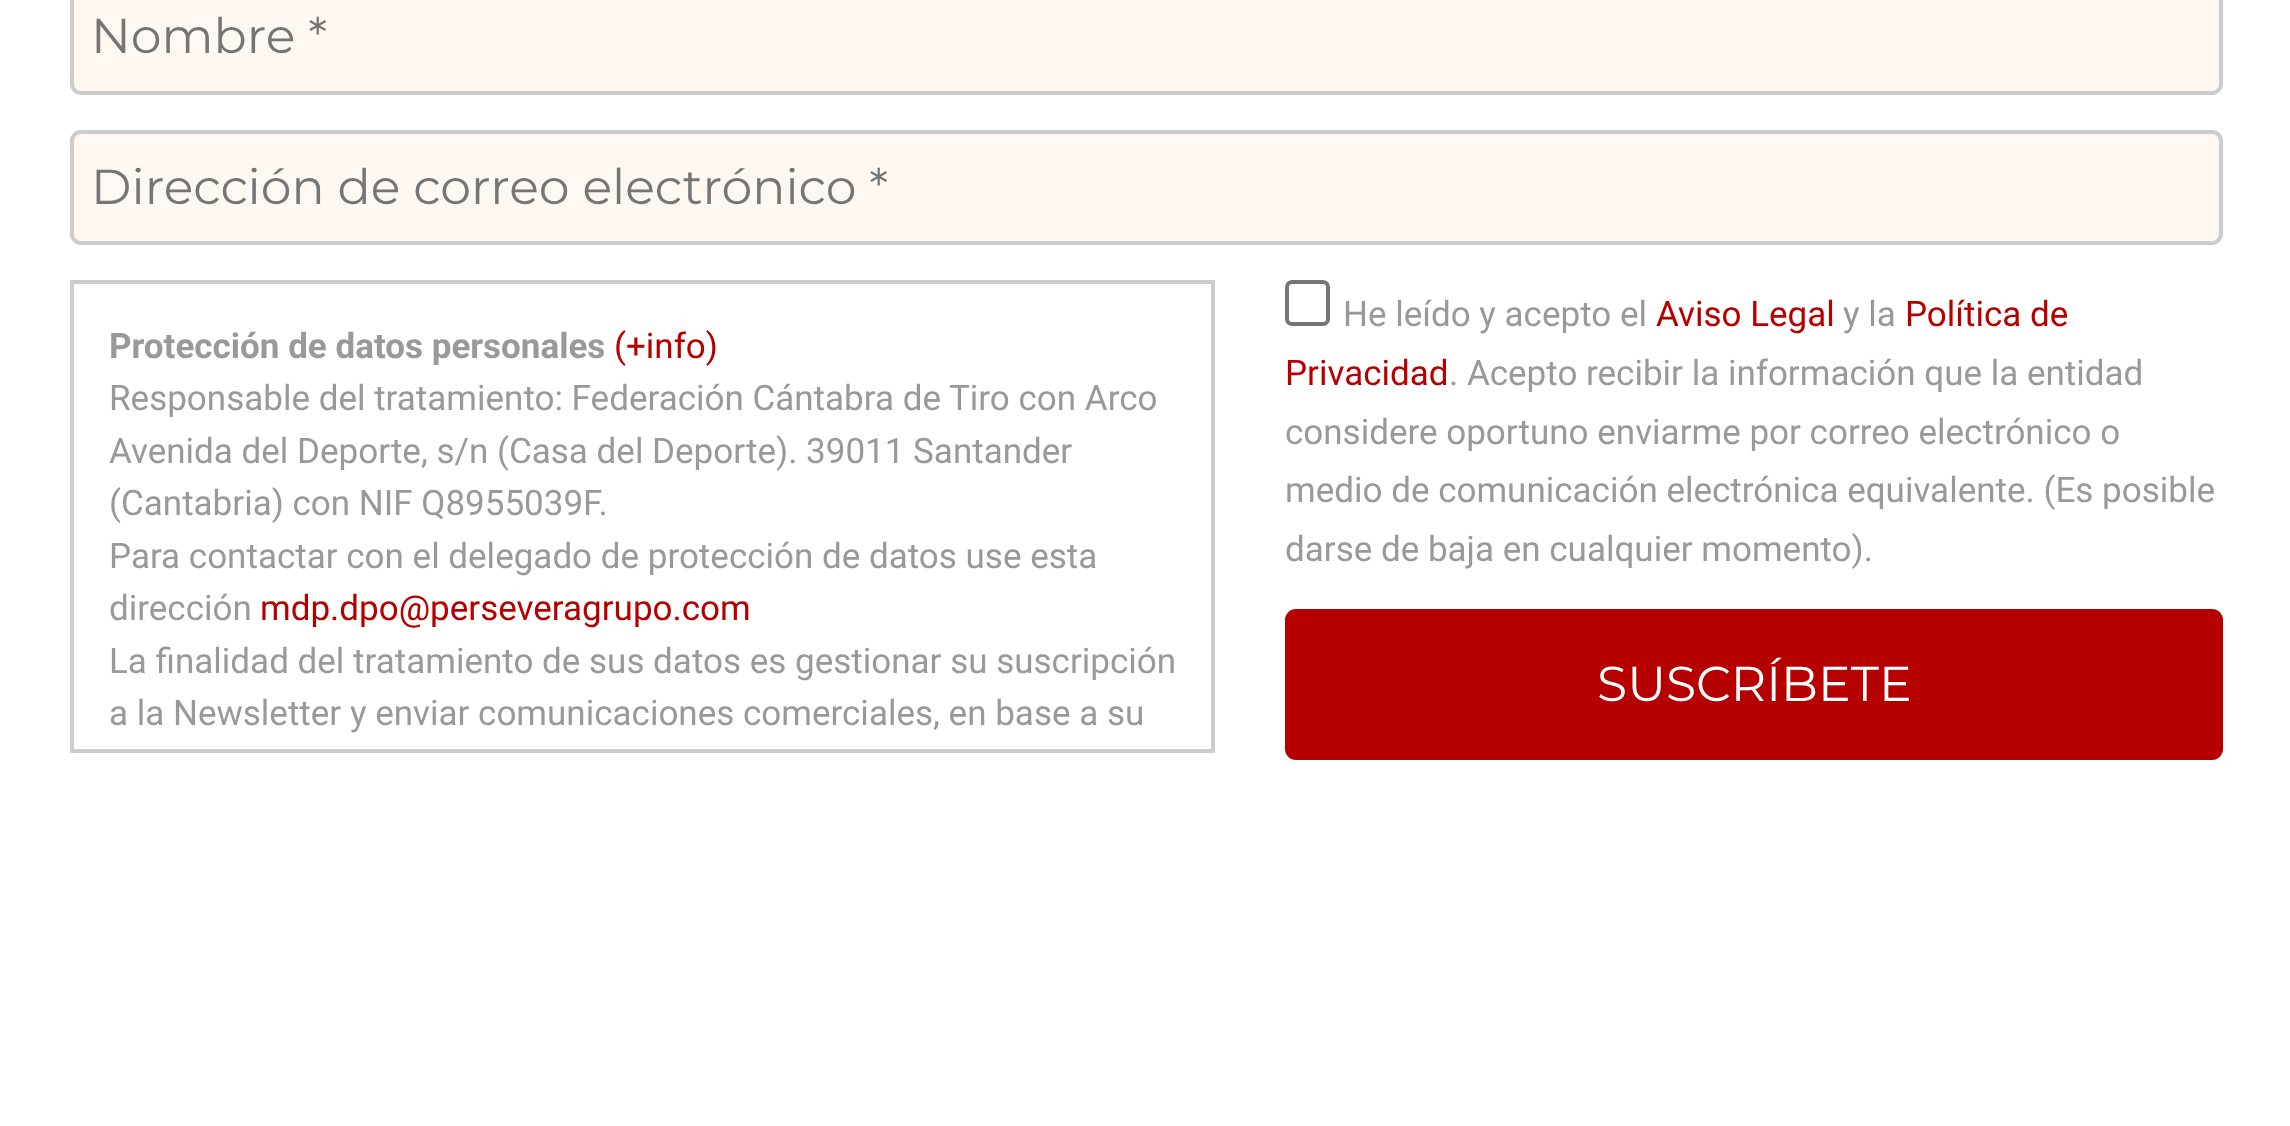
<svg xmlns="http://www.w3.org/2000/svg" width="2290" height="1126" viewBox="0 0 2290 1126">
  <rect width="100%" height="100%" fill="#fff"/>
  <rect x="72" y="-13" width="2149" height="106" rx="9" fill="#fff7f1" stroke="#ccc" stroke-width="4"/>
  <rect x="72" y="132" width="2149" height="111" rx="9" fill="#fff7f1" stroke="#ccc" stroke-width="4"/>
  <path d="M72 282h1141v469H72z" fill="none" stroke="#ccc" stroke-width="4"/>
  <rect x="1287" y="282" width="41" height="42" rx="5" fill="none" stroke="#767676" stroke-width="4"/>
  <rect x="1287" y="611" width="934" height="147" rx="9" fill="#b60000" stroke="#b60000" stroke-width="4"/>
  <g font-family="Montserrat" font-size="49" fill="#757575">
    <text x="91" y="53">Nombre *</text>
    <text x="91" y="204">Dirección de correo electrónico *</text>
  </g>
  <text x="109" y="358" font-family="Roboto" font-size="35" font-weight="bold" fill="#999">Protección de datos personales</text>
  <text x="614" y="358" font-family="Roboto" font-size="35" fill="#b60000">(+info)</text>
  <g font-family="Roboto" font-size="35" fill="#999">
    <text x="109" y="410">Responsable del tratamiento: Federación Cántabra de Tiro con Arco</text>
    <text x="109" y="463">Avenida del Deporte, s/n (Casa del Deporte). 39011 Santander</text>
    <text x="109" y="515">(Cantabria) con NIF Q8955039F.</text>
    <text x="109" y="568">Para contactar con el delegado de protección de datos use esta</text>
    <text x="109" y="620">dirección</text>
  </g>
  <text x="260" y="620" font-family="Roboto" font-size="35" fill="#b60000">mdp.dpo@perseveragrupo.com</text>
  <g font-family="Roboto" font-size="35" fill="#999">
    <text x="109" y="673">La finalidad del tratamiento de sus datos es gestionar su suscripción</text>
    <text x="109" y="725">a la Newsletter y enviar comunicaciones comerciales, en base a su</text>
    <text x="1343" y="326">He leído y acepto el</text>
  </g>
  <text x="1656" y="326" font-family="Roboto" font-size="35" fill="#b60000">Aviso Legal</text>
  <text x="1843" y="326" font-family="Roboto" font-size="35" fill="#999">y la</text>
  <g font-family="Roboto" font-size="35" fill="#b60000">
    <text x="1905" y="326">Política de</text>
    <text x="1285" y="385">Privacidad</text>
  </g>
  <g font-family="Roboto" font-size="35" fill="#999">
    <text x="1449" y="385">. Acepto recibir la información que la entidad</text>
    <text x="1285" y="444">considere oportuno enviarme por correo electrónico o</text>
    <text x="1285" y="502">medio de comunicación electrónica equivalente. (Es posible</text>
    <text x="1285" y="561">darse de baja en cualquier momento).</text>
  </g>
  <text x="1597" y="701" font-family="Montserrat" font-size="49" fill="#fff">SUSCRÍBETE</text>
</svg>
